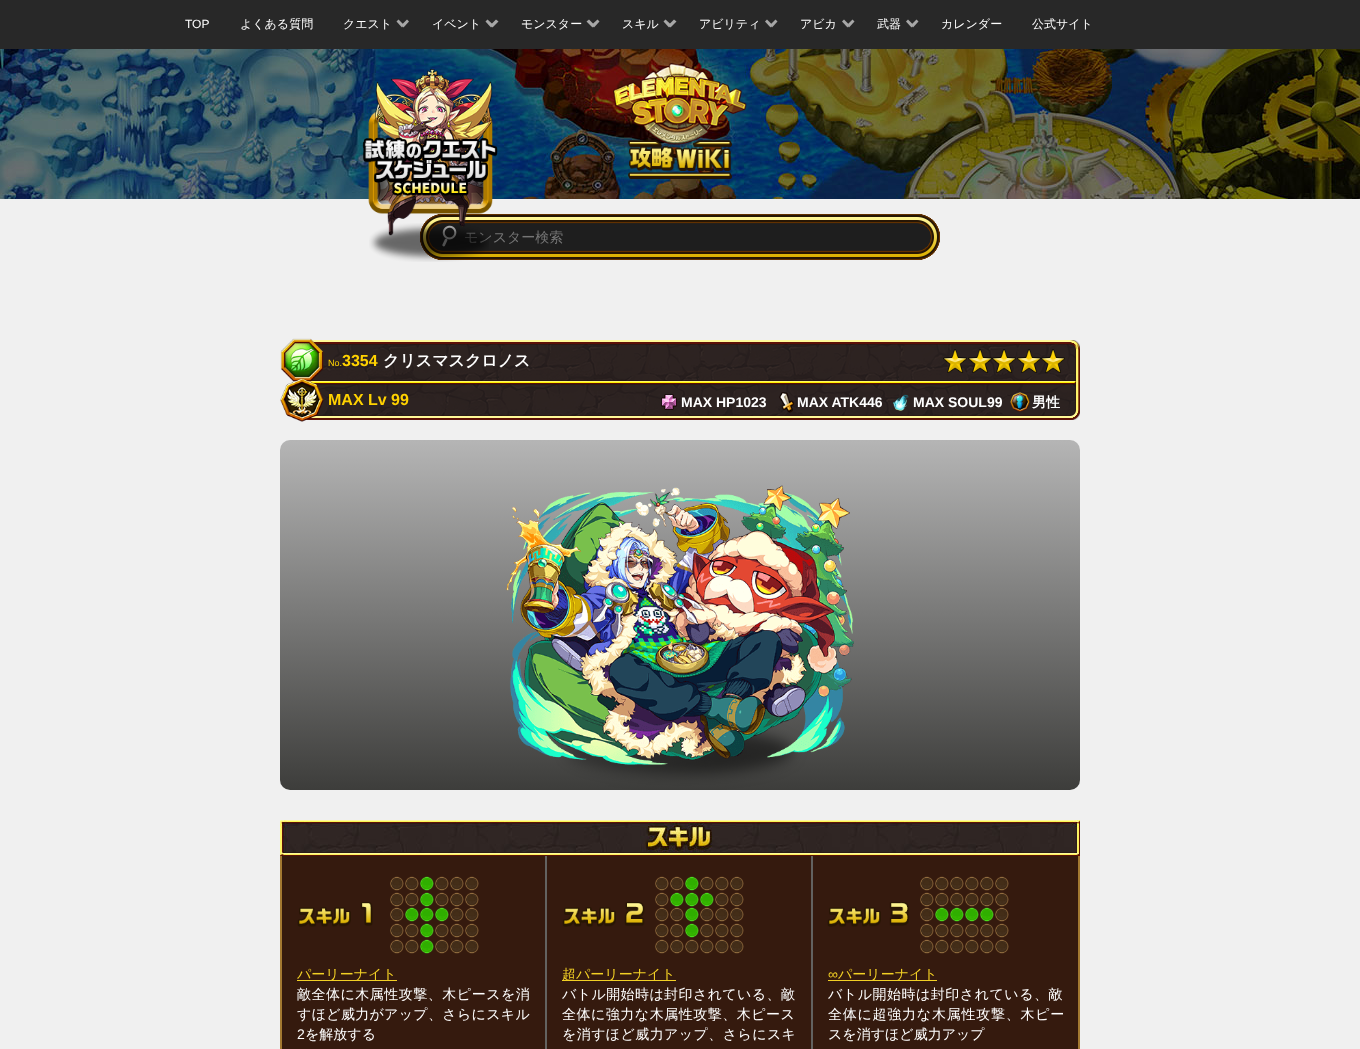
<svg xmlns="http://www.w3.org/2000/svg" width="1360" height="1049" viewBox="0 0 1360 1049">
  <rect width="100%" height="100%" fill="#f0f0f0"/>
  <path d="M0 0h1360v49H0z" fill="#282828"/>
  <path d="M409 21.5L403.5 27.5L401.5 25L407 19.5Z" fill="#a7a7a7"/>
  <path d="M404 25L402 27.5L396.5 21.5L398.5 19.5Z" fill="#a7a7a7"/>
  <path d="M498.5 21.5L492.5 27.5L490.5 25L496 19.5Z" fill="#a7a7a7"/>
  <path d="M493.5 25L491 27.5L485.5 21.5L487.5 19.5Z" fill="#a7a7a7"/>
  <path d="M599.5 21.5L594 27.5L591.5 25L597.5 19.5Z" fill="#a7a7a7"/>
  <path d="M594.5 25L592.5 27.5L586.5 21.5L589 19.5Z" fill="#a7a7a7"/>
  <path d="M676.5 21.5L670.5 27.5L668.5 25L674 19.5Z" fill="#a7a7a7"/>
  <path d="M671.5 25L669 27.5L663.5 21.5L665.5 19.5Z" fill="#a7a7a7"/>
  <path d="M777.5 21.5L772 27.5L770 25L775.5 19.5Z" fill="#a7a7a7"/>
  <path d="M772.5 25L770.5 27.5L765 21.5L767 19.5Z" fill="#a7a7a7"/>
  <path d="M854.5 21.5L849 27.5L847 25L852.5 19.5Z" fill="#a7a7a7"/>
  <path d="M849.5 25L847.5 27.5L842 21.5L844 19.5Z" fill="#a7a7a7"/>
  <path d="M918.5 21.5L913 27.5L911 25L916.5 19.5Z" fill="#a7a7a7"/>
  <path d="M913.5 25L911.5 27.5L906 21.5L908 19.5Z" fill="#a7a7a7"/>
  <image x="0" y="49" width="1360" height="150" href="img/1.png"/>
  <image x="613" y="63" width="134" height="116" href="img/2.png"/>
  <image x="420" y="214" width="520" height="46" href="img/5.png"/>
  <image x="300" y="340" width="780" height="80" href="img/6.png"/>
  <image x="280" y="338" width="44" height="44" href="img/7.png"/>
  <image x="943" y="349" width="24" height="24" href="img/8.png"/>
  <image x="968" y="349" width="24" height="24" href="img/9.png"/>
  <image x="992" y="349" width="24" height="24" href="img/10.png"/>
  <image x="1017" y="349" width="24" height="24" href="img/11.png"/>
  <image x="1041" y="349" width="24" height="24" href="img/12.png"/>
  <image x="280" y="378" width="44" height="44" href="img/13.png"/>
  <image x="661" y="394" width="16" height="16" href="img/14.png"/>
  <image x="779" y="392" width="16" height="21" href="img/15.png"/>
  <image x="893" y="394" width="16" height="17" href="img/16.png"/>
  <image x="1010" y="392" width="20" height="20" href="img/17.png"/>
  <image x="280" y="440" width="800" height="350" href="img/18.png"/>
  <image x="506" y="485" width="348" height="280" href="img/19.png"/>
  <path d="M281 855h798v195H281z" fill="none" stroke="#a37931" stroke-width="2"/>
  <image x="280" y="820" width="800" height="36" href="img/20.png"/>
  <path d="M282 856h263v193H282z" fill="#351a0e"/>
  <path d="M545 856h2v193H545z" fill="#636260"/>
  <image x="297" y="902" width="76" height="25" href="img/21.png"/>
  <image x="390" y="876" width="14" height="15" href="img/22.png"/>
  <image x="405" y="876" width="14" height="15" href="img/22.png"/>
  <image x="420" y="876" width="14" height="15" href="img/23.png"/>
  <image x="435" y="876" width="14" height="15" href="img/22.png"/>
  <image x="450" y="876" width="14" height="15" href="img/22.png"/>
  <image x="465" y="876" width="14" height="15" href="img/22.png"/>
  <image x="390" y="892" width="14" height="15" href="img/22.png"/>
  <image x="405" y="892" width="14" height="15" href="img/22.png"/>
  <image x="420" y="892" width="14" height="15" href="img/23.png"/>
  <image x="435" y="892" width="14" height="15" href="img/22.png"/>
  <image x="450" y="892" width="14" height="15" href="img/22.png"/>
  <image x="465" y="892" width="14" height="15" href="img/22.png"/>
  <image x="390" y="907" width="14" height="15" href="img/22.png"/>
  <image x="405" y="907" width="14" height="15" href="img/23.png"/>
  <image x="420" y="907" width="14" height="15" href="img/23.png"/>
  <image x="435" y="907" width="14" height="15" href="img/23.png"/>
  <image x="450" y="907" width="14" height="15" href="img/22.png"/>
  <image x="465" y="907" width="14" height="15" href="img/22.png"/>
  <image x="390" y="923" width="14" height="15" href="img/22.png"/>
  <image x="405" y="923" width="14" height="15" href="img/22.png"/>
  <image x="420" y="923" width="14" height="15" href="img/23.png"/>
  <image x="435" y="923" width="14" height="15" href="img/22.png"/>
  <image x="450" y="923" width="14" height="15" href="img/22.png"/>
  <image x="465" y="923" width="14" height="15" href="img/22.png"/>
  <image x="390" y="939" width="14" height="15" href="img/22.png"/>
  <image x="405" y="939" width="14" height="15" href="img/22.png"/>
  <image x="420" y="939" width="14" height="15" href="img/23.png"/>
  <image x="435" y="939" width="14" height="15" href="img/22.png"/>
  <image x="450" y="939" width="14" height="15" href="img/22.png"/>
  <image x="465" y="939" width="14" height="15" href="img/22.png"/>
  <path d="M297 980h100v1H297z" fill="#f2d025"/>
  <path d="M547 856h264v193H547z" fill="#351a0e"/>
  <path d="M811 856h2v193H811z" fill="#636260"/>
  <image x="562" y="902" width="83" height="25" href="img/24.png"/>
  <image x="655" y="876" width="14" height="15" href="img/22.png"/>
  <image x="670" y="876" width="14" height="15" href="img/22.png"/>
  <image x="685" y="876" width="14" height="15" href="img/23.png"/>
  <image x="700" y="876" width="14" height="15" href="img/22.png"/>
  <image x="715" y="876" width="14" height="15" href="img/22.png"/>
  <image x="730" y="876" width="14" height="15" href="img/22.png"/>
  <image x="655" y="892" width="14" height="15" href="img/22.png"/>
  <image x="670" y="892" width="14" height="15" href="img/23.png"/>
  <image x="685" y="892" width="14" height="15" href="img/23.png"/>
  <image x="700" y="892" width="14" height="15" href="img/23.png"/>
  <image x="715" y="892" width="14" height="15" href="img/22.png"/>
  <image x="730" y="892" width="14" height="15" href="img/22.png"/>
  <image x="655" y="907" width="14" height="15" href="img/22.png"/>
  <image x="670" y="907" width="14" height="15" href="img/22.png"/>
  <image x="685" y="907" width="14" height="15" href="img/23.png"/>
  <image x="700" y="907" width="14" height="15" href="img/22.png"/>
  <image x="715" y="907" width="14" height="15" href="img/22.png"/>
  <image x="730" y="907" width="14" height="15" href="img/22.png"/>
  <image x="655" y="923" width="14" height="15" href="img/22.png"/>
  <image x="670" y="923" width="14" height="15" href="img/22.png"/>
  <image x="685" y="923" width="14" height="15" href="img/23.png"/>
  <image x="700" y="923" width="14" height="15" href="img/22.png"/>
  <image x="715" y="923" width="14" height="15" href="img/22.png"/>
  <image x="730" y="923" width="14" height="15" href="img/22.png"/>
  <image x="655" y="939" width="14" height="15" href="img/22.png"/>
  <image x="670" y="939" width="14" height="15" href="img/22.png"/>
  <image x="685" y="939" width="14" height="15" href="img/22.png"/>
  <image x="700" y="939" width="14" height="15" href="img/22.png"/>
  <image x="715" y="939" width="14" height="15" href="img/22.png"/>
  <image x="730" y="939" width="14" height="15" href="img/22.png"/>
  <path d="M562 980h114v1H562z" fill="#f2d025"/>
  <path d="M813 856h265v193H813z" fill="#351a0e"/>
  <image x="827" y="902" width="82" height="25" href="img/25.png"/>
  <image x="920" y="876" width="14" height="15" href="img/22.png"/>
  <image x="935" y="876" width="14" height="15" href="img/22.png"/>
  <image x="950" y="876" width="14" height="15" href="img/22.png"/>
  <image x="965" y="876" width="14" height="15" href="img/22.png"/>
  <image x="980" y="876" width="14" height="15" href="img/22.png"/>
  <image x="995" y="876" width="14" height="15" href="img/22.png"/>
  <image x="920" y="892" width="14" height="15" href="img/22.png"/>
  <image x="935" y="892" width="14" height="15" href="img/22.png"/>
  <image x="950" y="892" width="14" height="15" href="img/22.png"/>
  <image x="965" y="892" width="14" height="15" href="img/22.png"/>
  <image x="980" y="892" width="14" height="15" href="img/22.png"/>
  <image x="995" y="892" width="14" height="15" href="img/22.png"/>
  <image x="920" y="907" width="14" height="15" href="img/22.png"/>
  <image x="935" y="907" width="14" height="15" href="img/23.png"/>
  <image x="950" y="907" width="14" height="15" href="img/23.png"/>
  <image x="965" y="907" width="14" height="15" href="img/23.png"/>
  <image x="980" y="907" width="14" height="15" href="img/23.png"/>
  <image x="995" y="907" width="14" height="15" href="img/22.png"/>
  <image x="920" y="923" width="14" height="15" href="img/22.png"/>
  <image x="935" y="923" width="14" height="15" href="img/22.png"/>
  <image x="950" y="923" width="14" height="15" href="img/22.png"/>
  <image x="965" y="923" width="14" height="15" href="img/22.png"/>
  <image x="980" y="923" width="14" height="15" href="img/22.png"/>
  <image x="995" y="923" width="14" height="15" href="img/22.png"/>
  <image x="920" y="939" width="14" height="15" href="img/22.png"/>
  <image x="935" y="939" width="14" height="15" href="img/22.png"/>
  <image x="950" y="939" width="14" height="15" href="img/22.png"/>
  <image x="965" y="939" width="14" height="15" href="img/22.png"/>
  <image x="980" y="939" width="14" height="15" href="img/22.png"/>
  <image x="995" y="939" width="14" height="15" href="img/22.png"/>
  <path d="M828 980h109v1H828z" fill="#f2d025"/>
  <text x="185" y="28" font-family="Liberation Sans" font-size="12" fill="#fff">TOP</text>
  <g font-family="WenQuanYi Zen Hei" font-size="12" font-weight="500" fill="#fff">
    <text x="240" y="28">よくある質問</text>
    <text x="343" y="28">クエスト</text>
    <text x="432" y="28">イベント</text>
    <text x="521" y="28">モンスター</text>
    <text x="622" y="28">スキル</text>
    <text x="699" y="28">アビリティ</text>
    <text x="800" y="28">アビカ</text>
    <text x="877" y="28">武器</text>
    <text x="941" y="28">カレンダー</text>
    <text x="1032" y="28">公式サイト</text>
  </g>
  <text x="464" y="242" font-family="WenQuanYi Zen Hei" font-size="14" font-weight="500" fill="#757575">モンスター検索</text>
  <image x="362" y="69" width="136" height="167" href="img/3.png"/>
  <image x="369" y="223" width="120" height="39" href="img/4.png"/>
  <text x="328" y="366" font-family="Liberation Sans" font-size="9" fill="#ffd200">No.</text>
  <text x="342" y="366" font-family="Liberation Sans" font-size="16" font-weight="bold" fill="#ffd200">3354</text>
  <text x="383" y="366" font-family="WenQuanYi Zen Hei" font-size="16" font-weight="bold" fill="#fff">クリスマスクロノス</text>
  <text x="328" y="405" font-family="Liberation Sans" font-size="16" font-weight="bold" fill="#ffd200">MAX Lv 99</text>
  <g font-family="Liberation Sans" font-size="14" font-weight="bold" fill="#fff">
    <text x="681" y="407">MAX HP1023</text>
    <text x="797" y="407">MAX ATK446</text>
    <text x="913" y="407">MAX SOUL99</text>
  </g>
  <text x="1032" y="407" font-family="WenQuanYi Zen Hei" font-size="14" font-weight="bold" fill="#fff">男性</text>
  <text x="297" y="979" font-family="WenQuanYi Zen Hei" font-size="14" font-weight="500" fill="#f2d025">パーリーナイト</text>
  <text x="297" y="999" font-family="WenQuanYi Zen Hei" font-size="14" font-weight="500" letter-spacing="0.5" fill="#fff">敵全体に木属性攻撃、木ピースを消</text>
  <text x="297" y="1019" font-family="WenQuanYi Zen Hei" font-size="14" font-weight="500" letter-spacing="0.3" fill="#fff">すほど威力がアップ、さらにスキル</text>
  <text x="297" y="1039" font-family="Liberation Sans" font-size="14" fill="#fff">2</text>
  <text x="305" y="1039" font-family="WenQuanYi Zen Hei" font-size="14" font-weight="500" fill="#fff">を解放する</text>
  <text x="562" y="979" font-family="WenQuanYi Zen Hei" font-size="14" font-weight="500" fill="#f2d025">超パーリーナイト</text>
  <text x="562" y="999" font-family="WenQuanYi Zen Hei" font-size="14" font-weight="500" letter-spacing="0.4" fill="#fff">バトル開始時は封印されている、敵</text>
  <text x="562" y="1019" font-family="WenQuanYi Zen Hei" font-size="14" font-weight="500" letter-spacing="0.5" fill="#fff">全体に強力な木属性攻撃、木ピース</text>
  <text x="562" y="1039" font-family="WenQuanYi Zen Hei" font-size="14" font-weight="500" letter-spacing="0.4" fill="#fff">を消すほど威力アップ、さらにスキ</text>
  <text x="828" y="979" font-family="Liberation Sans" font-size="14" fill="#f2d025">∞</text>
  <text x="838" y="979" font-family="WenQuanYi Zen Hei" font-size="14" font-weight="500" fill="#f2d025">パーリーナイト</text>
  <text x="828" y="999" font-family="WenQuanYi Zen Hei" font-size="14" font-weight="500" letter-spacing="0.5" fill="#fff">バトル開始時は封印されている、敵</text>
  <text x="828" y="1019" font-family="WenQuanYi Zen Hei" font-size="14" font-weight="500" letter-spacing="0.75" fill="#fff">全体に超強力な木属性攻撃、木ピー</text>
  <text x="828" y="1039" font-family="WenQuanYi Zen Hei" font-size="14" font-weight="500" fill="#fff">スを消すほど威力アップ</text>
</svg>
